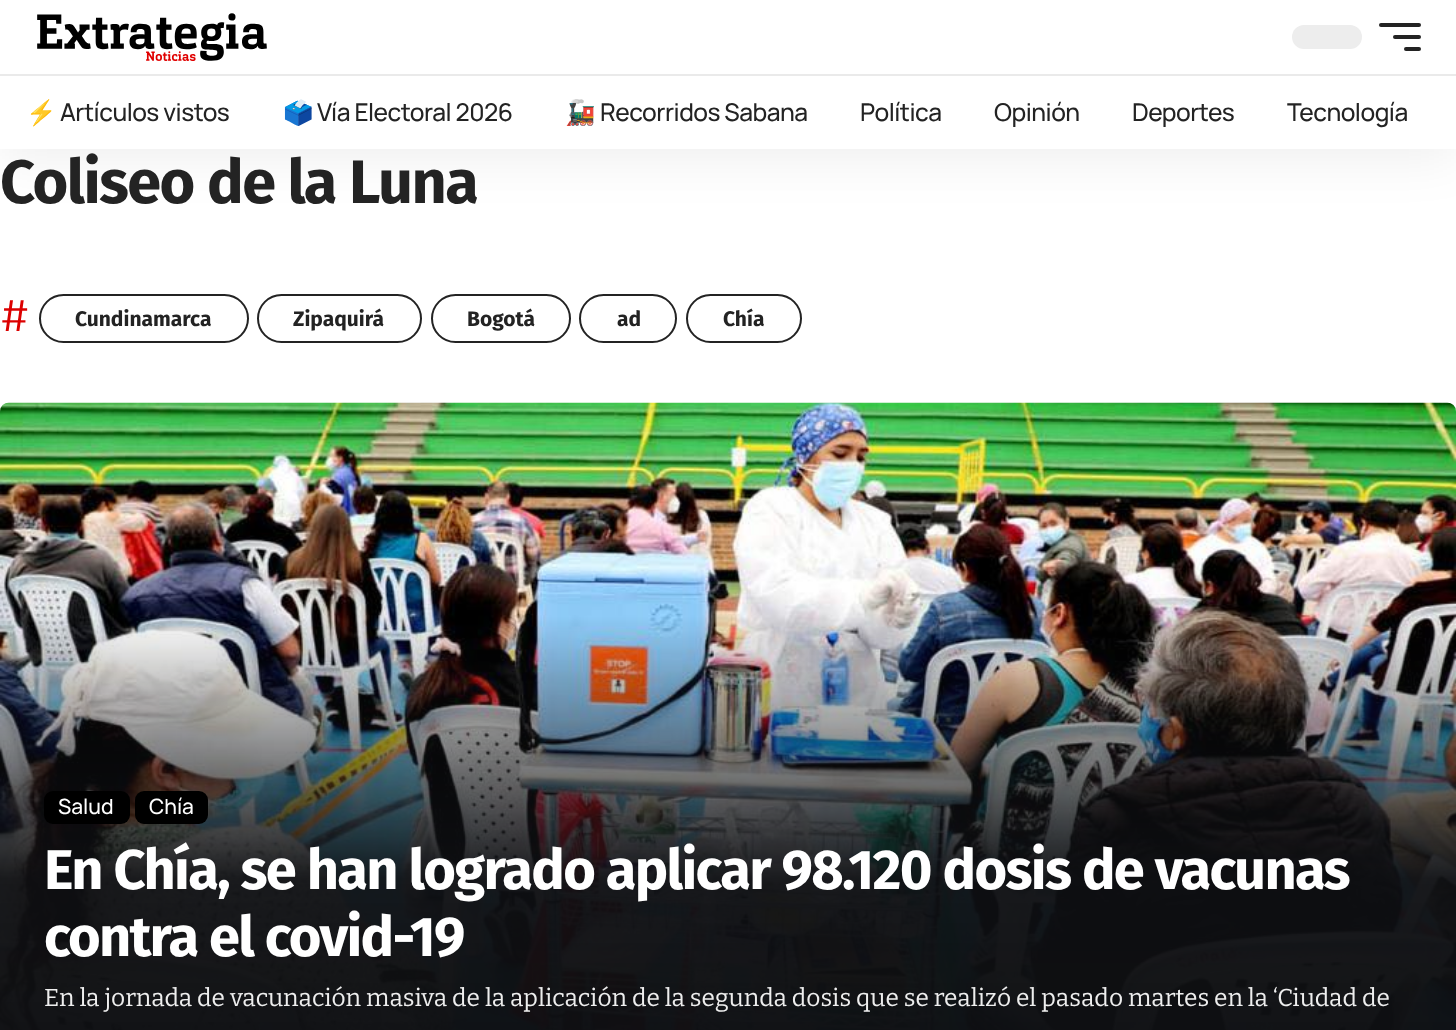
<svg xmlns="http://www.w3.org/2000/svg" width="1456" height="1030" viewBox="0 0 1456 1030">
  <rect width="100%" height="100%" fill="#fff"/>
  <path d="M0 7h1456v149H0z" fill="#00000012" filter="blur(26px)"/>
  <path d="M0 0h1456v149H0z" fill="#fff"/>
  <image x="37" y="13" width="230" height="48" href="img/1.png"/>
  <rect x="1292" y="25" width="70" height="24" rx="12" fill="#ededed"/>
  <rect x="1379" y="23" width="42" height="4" rx="2" fill="#232323"/>
  <rect x="1393" y="35" width="28" height="4" rx="2" fill="#232323"/>
  <rect x="1404" y="47" width="17" height="4" rx="2" fill="#232323"/>
  <path d="M0 74h1456v2H0z" fill="#eaeaea"/>
  <rect x="40" y="295" width="208" height="47" rx="23.5" fill="none" stroke="#232323" stroke-width="2"/>
  <rect x="258" y="295" width="163" height="47" rx="23.5" fill="none" stroke="#232323" stroke-width="2"/>
  <rect x="432" y="295" width="138" height="47" rx="23.5" fill="none" stroke="#232323" stroke-width="2"/>
  <rect x="580" y="295" width="96" height="47" rx="23.5" fill="none" stroke="#232323" stroke-width="2"/>
  <rect x="687" y="295" width="114" height="47" rx="23.5" fill="none" stroke="#232323" stroke-width="2"/>
  <image x="0" y="402" width="1456" height="628" href="img/2.png"/>
  <rect x="44" y="791" width="86" height="33" rx="9" fill="#000"/>
  <rect x="135" y="791" width="73" height="33" rx="9" fill="#000"/>
  <text x="26" y="121" font-family="Noto Color Emoji" font-size="24.5" letter-spacing="-0.5" fill="#232323">⚡️</text>
  <text x="60" y="121" font-family="Manrope" font-size="24.5" font-weight="500" letter-spacing="-0.5" fill="#232323">Artículos vistos</text>
  <text x="283" y="121" font-family="Noto Color Emoji" font-size="24.5" letter-spacing="-0.5" fill="#232323">🗳️</text>
  <text x="317" y="121" font-family="Manrope" font-size="24.5" font-weight="500" letter-spacing="-0.5" fill="#232323">Vía Electoral 2026</text>
  <text x="565" y="121" font-family="Noto Color Emoji" font-size="24.5" letter-spacing="-0.5" fill="#232323">🚂</text>
  <g font-family="Manrope" font-size="24.5" font-weight="500" letter-spacing="-0.5" fill="#232323">
    <text x="600" y="121">Recorridos Sabana</text>
    <text x="860" y="121">Política</text>
    <text x="994" y="121">Opinión</text>
    <text x="1132" y="121">Deportes</text>
    <text x="1287" y="121">Tecnología</text>
  </g>
  <text x="0" y="203" font-family="Fira Sans" font-size="61.25" font-weight="bold" letter-spacing="-1.5" fill="#232323">Coliseo de la Luna</text>
  <text x="0" y="331" font-family="Bitter" font-size="44" font-weight="100" fill="#dc0000">#</text>
  <g font-family="Fira Sans" font-size="21" font-weight="bold" fill="#232323">
    <text x="75" y="326">Cundinamarca</text>
    <text x="293" y="326">Zipaquirá</text>
    <text x="467" y="326">Bogotá</text>
    <text x="617" y="326">ad</text>
    <text x="723" y="326">Chía</text>
  </g>
  <g font-family="Manrope" font-size="21" font-weight="500" fill="#fff">
    <text x="58" y="814">Salud</text>
    <text x="149" y="814">Chía</text>
  </g>
  <g font-family="Fira Sans" font-size="56" font-weight="bold" letter-spacing="-1.68" fill="#fff">
    <text x="44" y="889">En Chía, se han logrado aplicar 98.120 dosis de vacunas</text>
    <text x="44" y="956">contra el covid-19</text>
  </g>
  <text x="44" y="1006" font-family="Bitter" font-size="24.5" font-weight="100" fill="#eee">En la jornada de vacunación masiva de la aplicación de la segunda dosis que se realizó el pasado martes en la ‘Ciudad de</text>
</svg>
